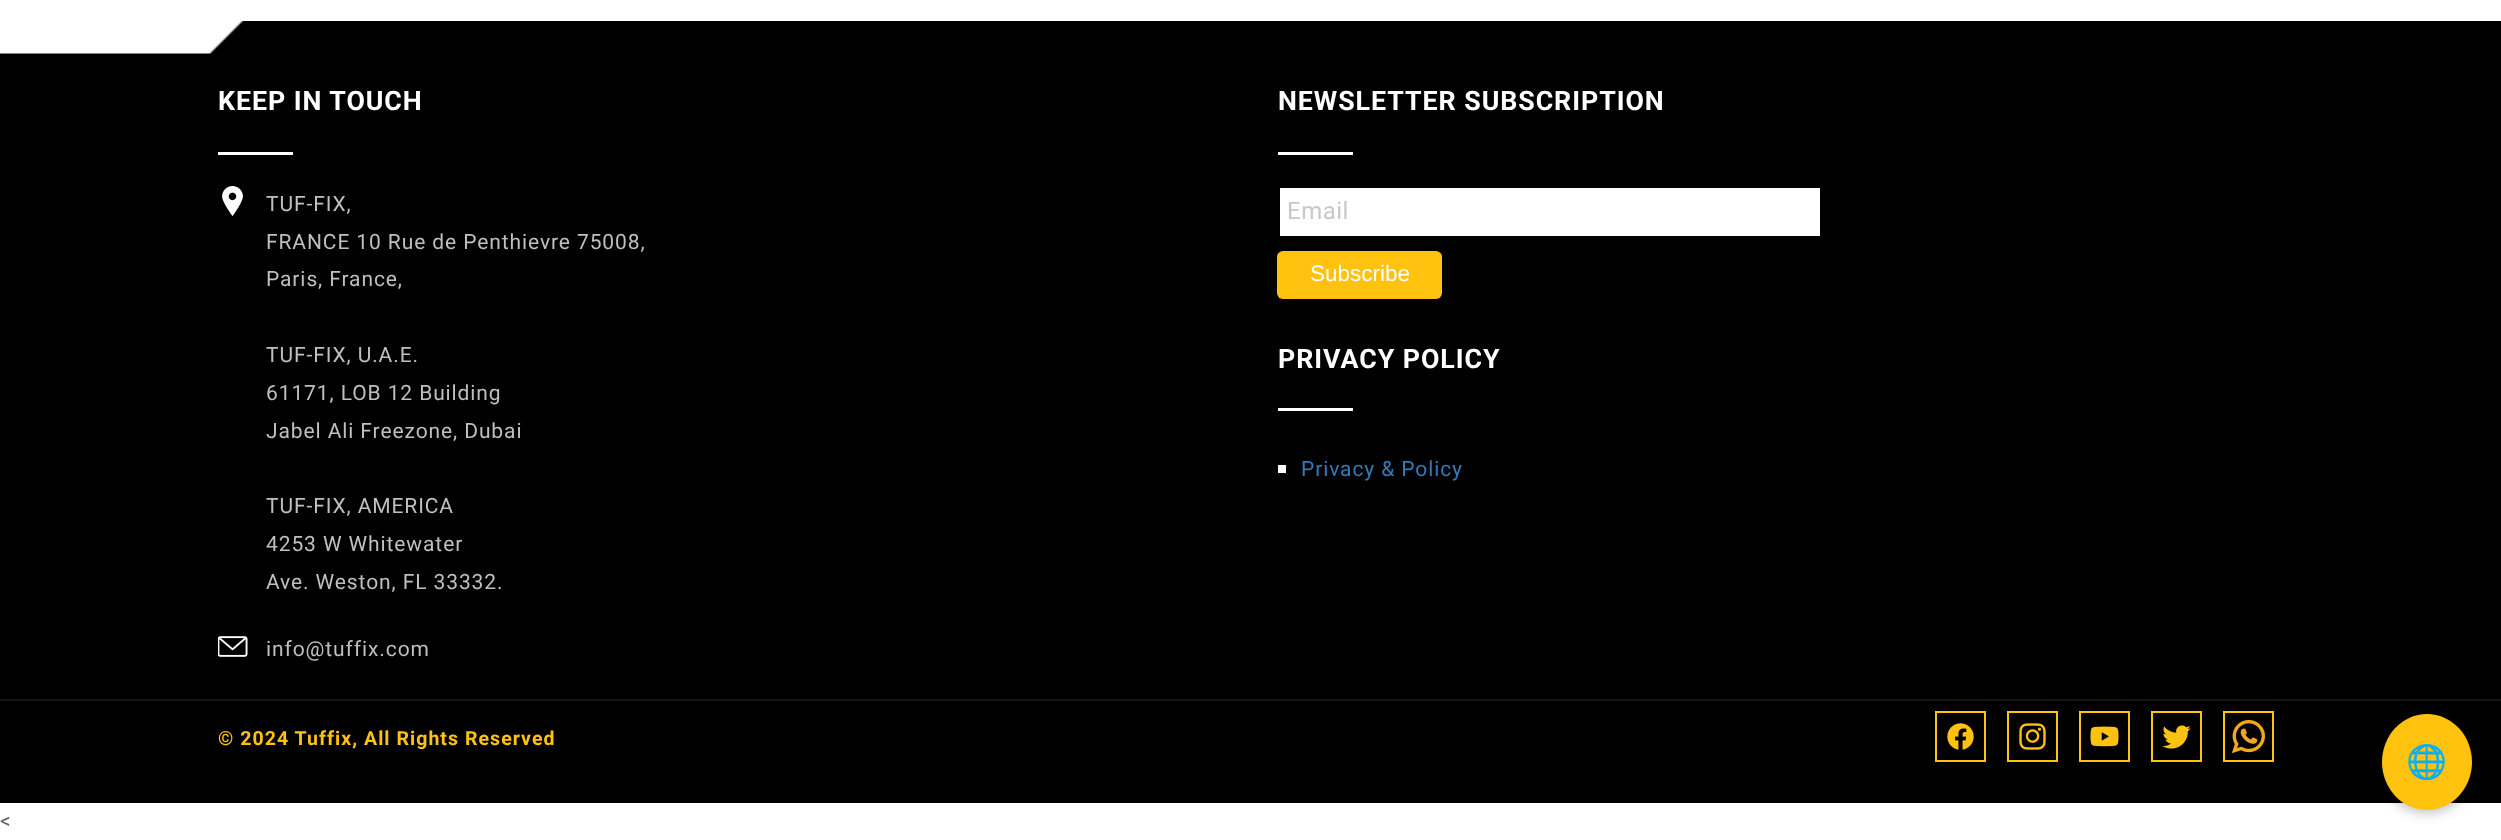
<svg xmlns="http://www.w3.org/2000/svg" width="2501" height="840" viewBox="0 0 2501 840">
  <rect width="100%" height="100%" fill="#fff"/>
  <path d="M0 21h2501v782H0z" fill="#000"/>
  <image x="0" y="21" width="243" height="33" href="img/1.png"/>
  <path d="M218 152h75v3H218z" fill="#fff"/>
  <image x="222" y="186" width="21" height="30" href="img/2.png"/>
  <image x="218" y="636" width="30" height="21" href="img/3.png"/>
  <path d="M1278 152h75v3H1278z" fill="#fff"/>
  <path d="M1280 188h540v48H1280z" fill="#fff"/>
  <rect x="1277" y="251" width="165" height="48" rx="6" fill="#ffc20e"/>
  <path d="M1278 408h75v3H1278z" fill="#fff"/>
  <path d="M1278 465h8v8H1278z" fill="#fff"/>
  <path d="M0 699h2501v2H0z" fill="#141414"/>
  <path d="M1936 712h49v49H1936z" fill="none" stroke="#ffc20e" stroke-width="2"/>
  <image x="1947" y="723" width="27" height="27" href="img/4.png"/>
  <path d="M2008 712h49v49H2008z" fill="none" stroke="#ffc20e" stroke-width="2"/>
  <image x="2019" y="723" width="27" height="27" href="img/5.png"/>
  <path d="M2080 712h49v49H2080z" fill="none" stroke="#ffc20e" stroke-width="2"/>
  <image x="2090" y="726" width="29" height="21" href="img/6.png"/>
  <path d="M2152 712h49v49H2152z" fill="none" stroke="#ffc20e" stroke-width="2"/>
  <image x="2162" y="725" width="29" height="24" href="img/7.png"/>
  <path d="M2224 712h49v49H2224z" fill="none" stroke="#ffc20e" stroke-width="2"/>
  <image x="2232" y="720" width="33" height="33" href="img/8.png"/>
  <rect x="2382" y="717" width="90" height="96" rx="45" fill="#00000040" filter="blur(6px)"/>
  <ellipse cx="2427" cy="762" rx="45" ry="48" fill="#ffc20e"/>
  <text x="218" y="110" font-family="Roboto" font-size="26.75" font-weight="bold" letter-spacing="0.95" fill="#fff">KEEP IN TOUCH</text>
  <g font-family="Roboto" font-size="21" letter-spacing="0.9" fill="#bfbfbf">
    <text x="266" y="211">TUF-FIX,</text>
    <text x="266" y="249">FRANCE 10 Rue de Penthievre 75008,</text>
    <text x="266" y="286">Paris, France,</text>
    <text x="266" y="362">TUF-FIX, U.A.E.</text>
    <text x="266" y="400">61171, LOB 12 Building</text>
    <text x="266" y="438">Jabel Ali Freezone, Dubai</text>
    <text x="266" y="513">TUF-FIX, AMERICA</text>
    <text x="266" y="551">4253 W Whitewater</text>
    <text x="266" y="589">Ave. Weston, FL 33332.</text>
    <text x="266" y="656">info@tuffix.com</text>
  </g>
  <text x="1278" y="110" font-family="Roboto" font-size="26.75" font-weight="bold" letter-spacing="0.95" fill="#fff">NEWSLETTER SUBSCRIPTION</text>
  <text x="1287" y="219" font-family="Roboto" font-size="24" letter-spacing="0.5" fill="#c8c8c8">Email</text>
  <text x="1310" y="281" font-family="Liberation Sans" font-size="22.5" fill="#fff">Subscribe</text>
  <text x="1278" y="368" font-family="Roboto" font-size="26.75" font-weight="bold" letter-spacing="0.95" fill="#fff">PRIVACY POLICY</text>
  <text x="1301" y="476" font-family="Roboto" font-size="21" letter-spacing="0.9" fill="#337ab7">Privacy &amp; Policy</text>
  <text x="218" y="745" font-family="Roboto" font-size="19.5" font-weight="bold" letter-spacing="1.05" fill="#ffc20e">© 2024 Tuffix, All Rights Reserved</text>
  <text x="2406" y="773" font-family="Noto Color Emoji" font-size="33" letter-spacing="0.9" fill="#000">🌐</text>
  <text x="0" y="828" font-family="Roboto" font-size="21" letter-spacing="0.9" fill="#666">&lt;</text>
</svg>
